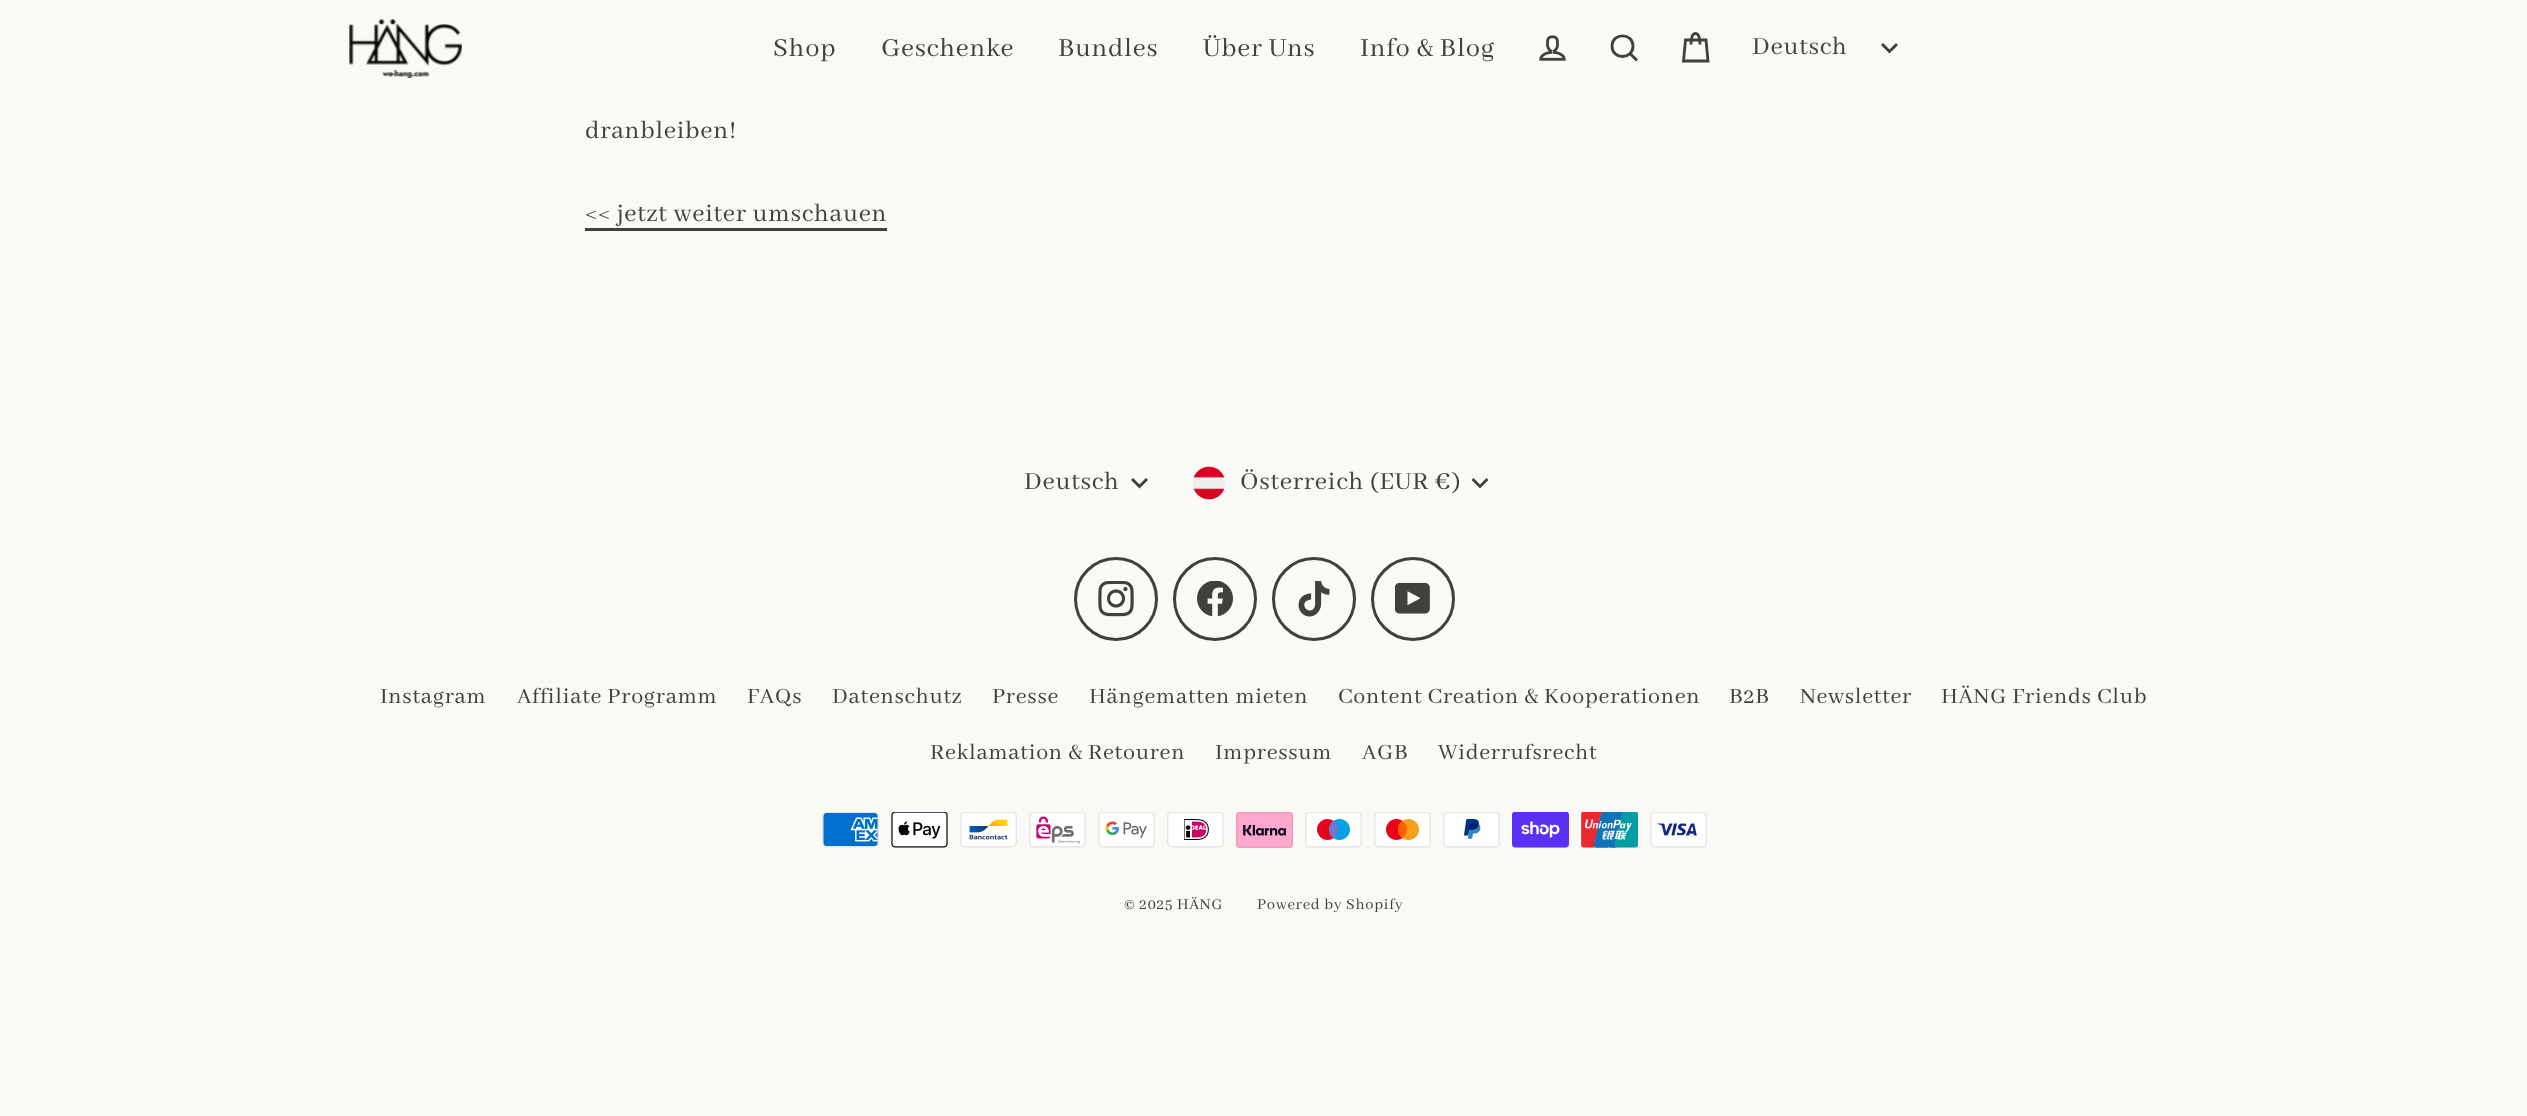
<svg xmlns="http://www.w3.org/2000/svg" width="2527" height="1116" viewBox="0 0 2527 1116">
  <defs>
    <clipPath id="clip1"><path d="M1472 476h16v16H1472z"/></clipPath>
  </defs>
  <rect width="100%" height="100%" fill="#faf9f5"/>
  <image x="349" y="19" width="113" height="59" href="img/1.png"/>
  <image x="1539" y="35" width="27" height="26" href="img/2.png"/>
  <path d="M1633 46C1633 60 1612 60 1612 46C1612 32.5 1633 32.5 1633 46ZM1637 60.5L1630 53.5" fill="none" stroke="#3f413d" stroke-width="2.8"/>
  <path d="M1691 44.5C1691 35.5 1693 33.5 1695.5 33.5C1698 33.5 1700 35.5 1700 44.5M1685.5 40H1706L1708 61H1683.5Z" fill="none" stroke="#3f413d" stroke-width="2.8"/>
  <path d="M1882 44L1889.5 51.5L1897 44" fill="none" stroke="#3f413d" stroke-width="2.9"/>
  <path d="M585 228h302v3H585z" fill="#3f413d"/>
  <path d="M1132 479L1139.5 486.5L1147 479" fill="none" stroke="#3f413d" stroke-width="2.9"/>
  <image x="1193" y="466" width="32" height="34" href="img/3.png"/>
  <g clip-path="url(#clip1)">
    <path d="M1472.5 479L1480 486.5L1487.5 479" fill="none" stroke="#3f413d" stroke-width="2.9"/>
  </g>
  <circle cx="1116" cy="599" r="40.5" fill="none" stroke="#3f413d" stroke-width="3"/>
  <image x="1098" y="581" width="36" height="36" href="img/4.png"/>
  <circle cx="1215" cy="599" r="40.5" fill="none" stroke="#3f413d" stroke-width="3"/>
  <image x="1197" y="581" width="36" height="36" href="img/5.png"/>
  <circle cx="1314" cy="599" r="40.5" fill="none" stroke="#3f413d" stroke-width="3"/>
  <image x="1298" y="581" width="32" height="36" href="img/6.png"/>
  <circle cx="1413" cy="599" r="40.5" fill="none" stroke="#3f413d" stroke-width="3"/>
  <image x="1395" y="582" width="35" height="32" href="img/7.png"/>
  <image x="822" y="812" width="57" height="36" href="img/8.png"/>
  <image x="891" y="812" width="57" height="36" href="img/9.png"/>
  <image x="960" y="812" width="57" height="36" href="img/10.png"/>
  <image x="1029" y="812" width="57" height="36" href="img/11.png"/>
  <image x="1098" y="812" width="57" height="36" href="img/12.png"/>
  <image x="1167" y="812" width="57" height="36" href="img/13.png"/>
  <image x="1236" y="812" width="57" height="36" href="img/14.png"/>
  <image x="1305" y="812" width="57" height="36" href="img/15.png"/>
  <image x="1374" y="812" width="57" height="36" href="img/16.png"/>
  <image x="1443" y="812" width="57" height="36" href="img/17.png"/>
  <image x="1512" y="812" width="57" height="36" href="img/18.png"/>
  <image x="1581" y="812" width="57" height="36" href="img/19.png"/>
  <image x="1650" y="812" width="57" height="36" href="img/20.png"/>
  <g font-family="Abhaya Libre" font-size="28.5" letter-spacing="0.7" fill="#3f413d">
    <text x="773" y="56">Shop</text>
    <text x="881" y="56">Geschenke</text>
    <text x="1058" y="56">Bundles</text>
    <text x="1203" y="56">Über Uns</text>
    <text x="1360" y="56">Info &amp; Blog</text>
  </g>
  <g font-family="Abhaya Libre" font-size="27" letter-spacing="0.7" fill="#3f413d">
    <text x="1752" y="54">Deutsch</text>
    <text x="585" y="138">dranbleiben!</text>
    <text x="585" y="221">&lt;&lt; jetzt weiter umschauen</text>
    <text x="1024" y="489">Deutsch</text>
    <text x="1240" y="489">Österreich (EUR €)</text>
  </g>
  <g font-family="Abhaya Libre" font-size="24" letter-spacing="0.7" fill="#3f413d">
    <text x="380" y="703">Instagram</text>
    <text x="517" y="703">Affiliate Programm</text>
    <text x="747" y="703">FAQs</text>
    <text x="832" y="703">Datenschutz</text>
    <text x="992" y="703">Presse</text>
    <text x="1089" y="703">Hängematten mieten</text>
    <text x="1338" y="703">Content Creation &amp; Kooperationen</text>
    <text x="1729" y="703">B2B</text>
    <text x="1800" y="703">Newsletter</text>
    <text x="1941" y="703">HÄNG Friends Club</text>
    <text x="930" y="759">Reklamation &amp; Retouren</text>
    <text x="1215" y="759">Impressum</text>
    <text x="1362" y="759">AGB</text>
    <text x="1438" y="759">Widerrufsrecht</text>
  </g>
  <g font-family="Abhaya Libre" font-size="16.5" letter-spacing="0.7" fill="#3f413d">
    <text x="1124" y="909">© 2025 HÄNG</text>
    <text x="1257" y="909">Powered by Shopify</text>
  </g>
</svg>
